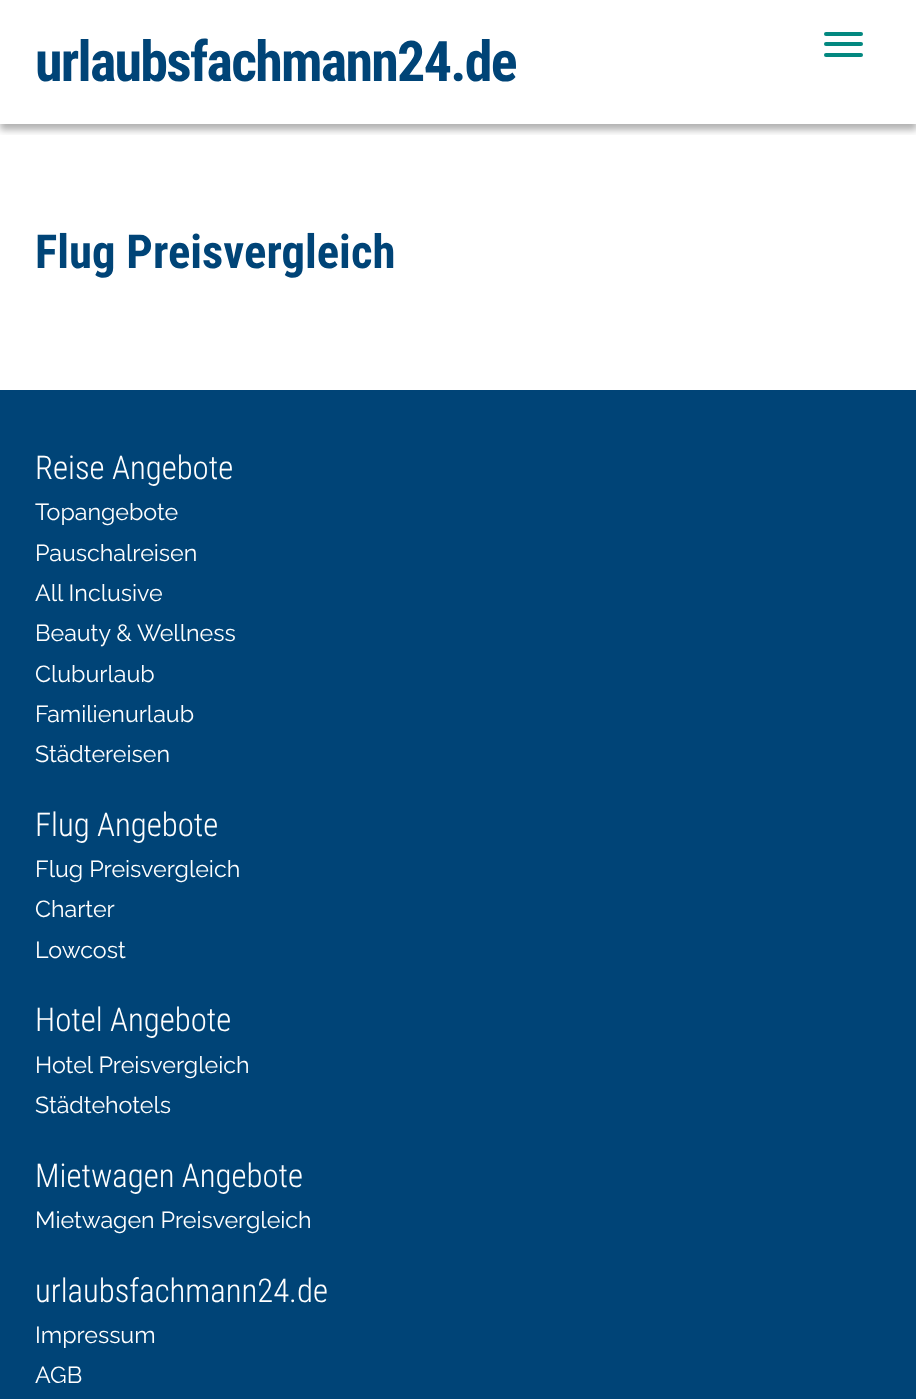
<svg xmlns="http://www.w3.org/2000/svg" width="916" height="1399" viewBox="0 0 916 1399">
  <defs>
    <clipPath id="clip1"><path d="M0 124h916v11H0z"/></clipPath>
  </defs>
  <rect width="100%" height="100%" fill="#fff"/>
  <g clip-path="url(#clip1)">
    <path d="M0 5h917v125H0z" fill="#0000004d" filter="blur(3.5px)"/>
  </g>
  <rect x="824" y="32" width="39" height="4" rx="2" fill="#038880"/>
  <rect x="824" y="42" width="39" height="4" rx="2" fill="#038880"/>
  <rect x="824" y="53" width="39" height="4" rx="2" fill="#038880"/>
  <path d="M0 390h916v1009H0z" fill="#047"/>
  <text x="35" y="81" font-family="Roboto Condensed" font-size="56" font-weight="bold" letter-spacing="-1.75" fill="#047">urlaubsfachmann24.de</text>
  <text x="35" y="268" font-family="Roboto Condensed" font-size="46.75" font-weight="bold" fill="#047">Flug Preisvergleich</text>
  <text x="35" y="479" font-family="Roboto Condensed" font-size="32.75" font-weight="300" fill="#fff">Reise Angebote</text>
  <g font-family="Raleway" font-size="23.25" font-weight="100" fill="#fff">
    <text x="35" y="520">Topangebote</text>
    <text x="35" y="561">Pauschalreisen</text>
    <text x="35" y="601">All Inclusive</text>
    <text x="35" y="641">Beauty &amp; Wellness</text>
    <text x="35" y="682">Cluburlaub</text>
    <text x="35" y="722">Familienurlaub</text>
    <text x="35" y="762">Städtereisen</text>
  </g>
  <text x="35" y="836" font-family="Roboto Condensed" font-size="32.75" font-weight="300" fill="#fff">Flug Angebote</text>
  <g font-family="Raleway" font-size="23.25" font-weight="100" fill="#fff">
    <text x="35" y="877">Flug Preisvergleich</text>
    <text x="35" y="917">Charter</text>
    <text x="35" y="958">Lowcost</text>
  </g>
  <text x="35" y="1031" font-family="Roboto Condensed" font-size="32.75" font-weight="300" fill="#fff">Hotel Angebote</text>
  <g font-family="Raleway" font-size="23.25" font-weight="100" fill="#fff">
    <text x="35" y="1073">Hotel Preisvergleich</text>
    <text x="35" y="1113">Städtehotels</text>
  </g>
  <text x="35" y="1187" font-family="Roboto Condensed" font-size="32.75" font-weight="300" fill="#fff">Mietwagen Angebote</text>
  <text x="35" y="1228" font-family="Raleway" font-size="23.25" font-weight="100" fill="#fff">Mietwagen Preisvergleich</text>
  <text x="35" y="1302" font-family="Roboto Condensed" font-size="32.75" font-weight="300" fill="#fff">urlaubsfachmann24.de</text>
  <g font-family="Raleway" font-size="23.25" font-weight="100" fill="#fff">
    <text x="35" y="1343">Impressum</text>
    <text x="35" y="1383">AGB</text>
  </g>
</svg>
